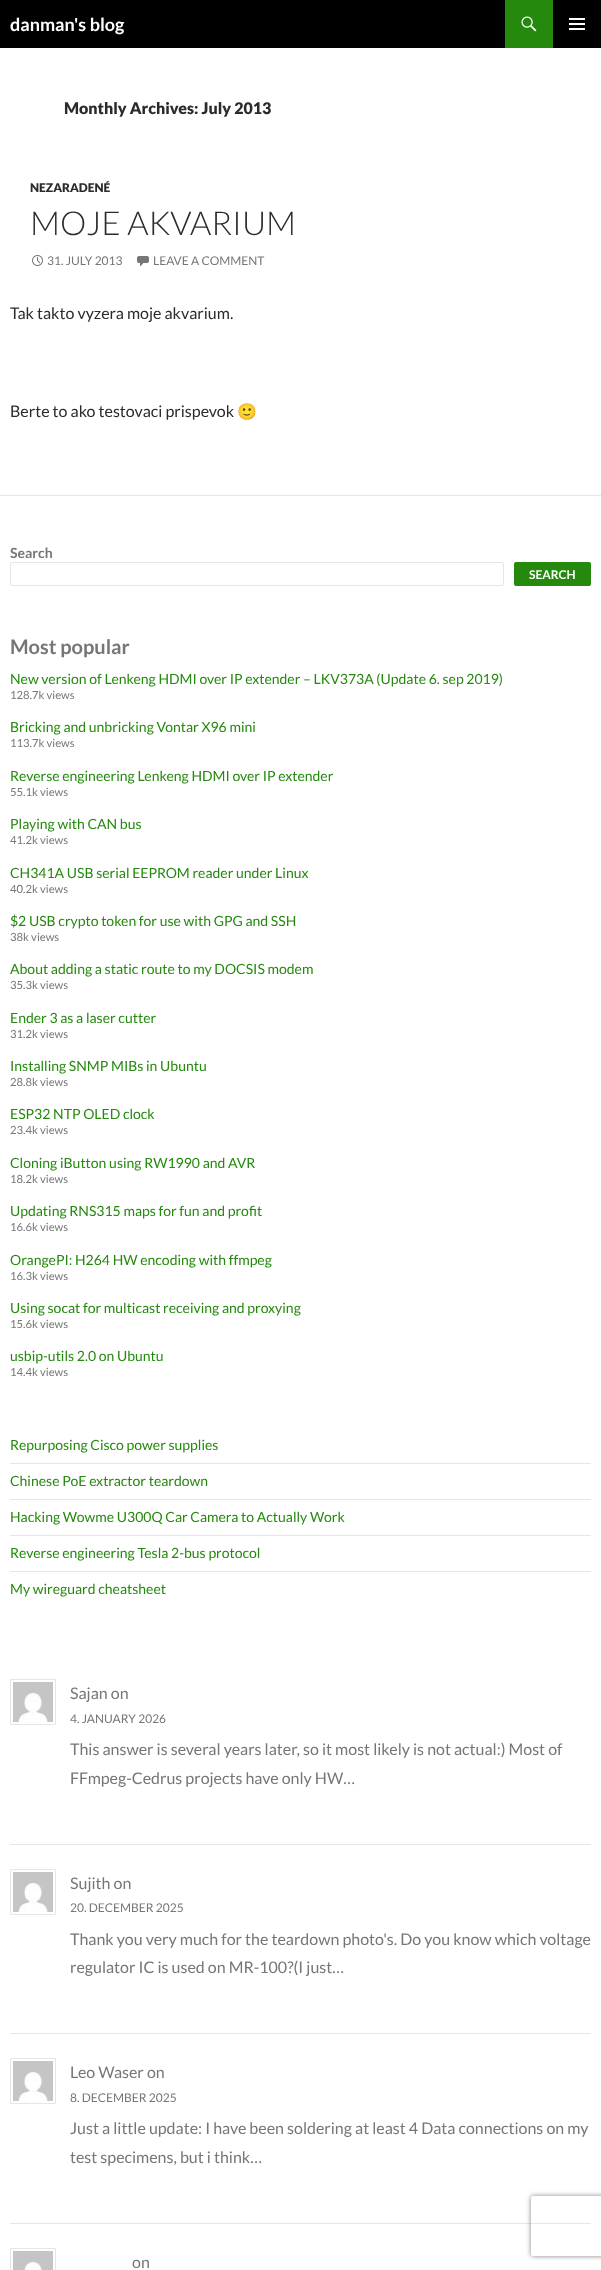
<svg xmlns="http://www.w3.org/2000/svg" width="601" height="2270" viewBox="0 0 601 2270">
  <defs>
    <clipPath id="clip1"><path d="M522 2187H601V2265H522ZM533 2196H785C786 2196 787 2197 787 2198V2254C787 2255 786 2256 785 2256H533C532 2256 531 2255 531 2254V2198C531 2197 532 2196 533 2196Z" clip-rule="evenodd"/></clipPath>
  </defs>
  <rect width="100%" height="100%" fill="#fff"/>
  <path d="M0 0h601v48H0z" fill="#000"/>
  <path d="M505 0h48v48H505z" fill="#24890d"/>
  <image x="521" y="16" width="16" height="16" href="img/1.png"/>
  <image x="569" y="18" width="16" height="12" href="img/2.png"/>
  <image x="32" y="255" width="11" height="11" href="img/3.png"/>
  <image x="137" y="256" width="12" height="11" href="img/4.png"/>
  <path d="M0 495h601v1H0z" fill="#e6e6e6"/>
  <rect x="10.5" y="562.5" width="493" height="23" rx="1.5" fill="none" stroke="#e6e6e6"/>
  <rect x="514" y="562" width="77" height="24" rx="2" fill="#24890d"/>
  <path d="M10 1463h581v1H10z" fill="#e6e6e6"/>
  <path d="M10 1499h581v1H10z" fill="#e6e6e6"/>
  <path d="M10 1535h581v1H10z" fill="#e6e6e6"/>
  <path d="M10 1571h581v1H10z" fill="#e6e6e6"/>
  <path d="M10.5 1679.5h45v45H10.5z" fill="none" stroke="#e6e6e6"/>
  <image x="13" y="1682" width="40" height="40" href="img/5.png"/>
  <path d="M10 1844h581v1H10z" fill="#e6e6e6"/>
  <path d="M10.5 1869.5h45v45H10.5z" fill="none" stroke="#e6e6e6"/>
  <image x="13" y="1872" width="40" height="40" href="img/5.png"/>
  <path d="M10 2033h581v1H10z" fill="#e6e6e6"/>
  <path d="M10.5 2058.5h45v45H10.5z" fill="none" stroke="#e6e6e6"/>
  <image x="13" y="2061" width="40" height="40" href="img/5.png"/>
  <path d="M10 2223h581v1H10z" fill="#e6e6e6"/>
  <path d="M10.5 2248.5h45v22H10.5z" fill="none" stroke="#e6e6e6"/>
  <image x="13" y="2251" width="40" height="19" href="img/6.png"/>
  <g clip-path="url(#clip1)">
    <rect x="531" y="2196" width="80" height="60" rx="2" fill="#808080" filter="blur(2.5px)"/>
  </g>
  <text x="10" y="31" font-family="Lato" font-size="18" font-weight="bold" fill="#fff">danman's blog</text>
  <text x="64" y="114" font-family="Lato" font-size="16" font-weight="900" fill="#2b2b2b">Monthly Archives: July 2013</text>
  <text x="30" y="192" font-family="Lato" font-size="12" font-weight="900" fill="#2b2b2b">NEZARADENÉ</text>
  <text x="30" y="235" font-family="Lato" font-size="33" font-weight="300" fill="#2b2b2b">MOJE AKVARIUM</text>
  <g font-family="Lato" font-size="12" fill="#767676">
    <text x="47" y="265">31. JULY 2013</text>
    <text x="153" y="265">LEAVE A COMMENT</text>
  </g>
  <g font-family="Lato" font-size="16" fill="#2b2b2b">
    <text x="10" y="319">Tak takto vyzera moje akvarium.</text>
    <text x="10" y="417">Berte to ako testovaci prispevok</text>
  </g>
  <text x="237" y="417" font-family="Noto Color Emoji" font-size="16" fill="#2b2b2b">🙂</text>
  <text x="10" y="558" font-family="Lato" font-size="14" font-weight="bold" fill="#767676">Search</text>
  <text x="529" y="579" font-family="Lato" font-size="12" font-weight="bold" fill="#fff">SEARCH</text>
  <text x="10" y="654" font-family="Lato" font-size="20" font-weight="bold" fill="#767676">Most popular</text>
  <text x="10" y="684" font-family="Lato" font-size="14" fill="#24890d">New version of Lenkeng HDMI over IP extender – LKV373A (Update 6. sep 2019)</text>
  <text x="10" y="699" font-family="Lato" font-size="11.25" fill="#767676">128.7k views</text>
  <text x="10" y="732" font-family="Lato" font-size="14" fill="#24890d">Bricking and unbricking Vontar X96 mini</text>
  <text x="10" y="747" font-family="Lato" font-size="11.25" fill="#767676">113.7k views</text>
  <text x="10" y="781" font-family="Lato" font-size="14" fill="#24890d">Reverse engineering Lenkeng HDMI over IP extender</text>
  <text x="10" y="796" font-family="Lato" font-size="11.25" fill="#767676">55.1k views</text>
  <text x="10" y="829" font-family="Lato" font-size="14" fill="#24890d">Playing with CAN bus</text>
  <text x="10" y="844" font-family="Lato" font-size="11.25" fill="#767676">41.2k views</text>
  <text x="10" y="878" font-family="Lato" font-size="14" fill="#24890d">CH341A USB serial EEPROM reader under Linux</text>
  <text x="10" y="893" font-family="Lato" font-size="11.25" fill="#767676">40.2k views</text>
  <text x="10" y="926" font-family="Lato" font-size="14" fill="#24890d">$2 USB crypto token for use with GPG and SSH</text>
  <text x="10" y="941" font-family="Lato" font-size="11.25" fill="#767676">38k views</text>
  <text x="10" y="974" font-family="Lato" font-size="14" fill="#24890d">About adding a static route to my DOCSIS modem</text>
  <text x="10" y="989" font-family="Lato" font-size="11.25" fill="#767676">35.3k views</text>
  <text x="10" y="1023" font-family="Lato" font-size="14" fill="#24890d">Ender 3 as a laser cutter</text>
  <text x="10" y="1038" font-family="Lato" font-size="11.25" fill="#767676">31.2k views</text>
  <text x="10" y="1071" font-family="Lato" font-size="14" fill="#24890d">Installing SNMP MIBs in Ubuntu</text>
  <text x="10" y="1086" font-family="Lato" font-size="11.25" fill="#767676">28.8k views</text>
  <text x="10" y="1119" font-family="Lato" font-size="14" fill="#24890d">ESP32 NTP OLED clock</text>
  <text x="10" y="1134" font-family="Lato" font-size="11.25" fill="#767676">23.4k views</text>
  <text x="10" y="1168" font-family="Lato" font-size="14" fill="#24890d">Cloning iButton using RW1990 and AVR</text>
  <text x="10" y="1183" font-family="Lato" font-size="11.25" fill="#767676">18.2k views</text>
  <text x="10" y="1216" font-family="Lato" font-size="14" fill="#24890d">Updating RNS315 maps for fun and profit</text>
  <text x="10" y="1231" font-family="Lato" font-size="11.25" fill="#767676">16.6k views</text>
  <text x="10" y="1265" font-family="Lato" font-size="14" fill="#24890d">OrangePI: H264 HW encoding with ffmpeg</text>
  <text x="10" y="1280" font-family="Lato" font-size="11.25" fill="#767676">16.3k views</text>
  <text x="10" y="1313" font-family="Lato" font-size="14" fill="#24890d">Using socat for multicast receiving and proxying</text>
  <text x="10" y="1328" font-family="Lato" font-size="11.25" fill="#767676">15.6k views</text>
  <text x="10" y="1361" font-family="Lato" font-size="14" fill="#24890d">usbip-utils 2.0 on Ubuntu</text>
  <text x="10" y="1376" font-family="Lato" font-size="11.25" fill="#767676">14.4k views</text>
  <g font-family="Lato" font-size="14" fill="#24890d">
    <text x="10" y="1450">Repurposing Cisco power supplies</text>
    <text x="10" y="1486">Chinese PoE extractor teardown</text>
    <text x="10" y="1522">Hacking Wowme U300Q Car Camera to Actually Work</text>
    <text x="10" y="1558">Reverse engineering Tesla 2-bus protocol</text>
    <text x="10" y="1594">My wireguard cheatsheet</text>
  </g>
  <text x="70" y="1699" font-family="Lato" font-size="16" fill="#767676">Sajan on</text>
  <text x="70" y="1723" font-family="Lato" font-size="12" fill="#767676">4. JANUARY 2026</text>
  <g font-family="Lato" font-size="16" fill="#767676">
    <text x="70" y="1755">This answer is several years later, so it most likely is not actual:) Most of</text>
    <text x="70" y="1784">FFmpeg-Cedrus projects have only HW…</text>
    <text x="70" y="1889">Sujith on</text>
  </g>
  <text x="70" y="1912" font-family="Lato" font-size="12" fill="#767676">20. DECEMBER 2025</text>
  <g font-family="Lato" font-size="16" fill="#767676">
    <text x="70" y="1945">Thank you very much for the teardown photo's. Do you know which voltage</text>
    <text x="70" y="1973">regulator IC is used on MR-100?(I just…</text>
    <text x="70" y="2078">Leo Waser on</text>
  </g>
  <text x="70" y="2102" font-family="Lato" font-size="12" fill="#767676">8. DECEMBER 2025</text>
  <g font-family="Lato" font-size="16" fill="#767676">
    <text x="70" y="2134">Just a little update: I have been soldering at least 4 Data connections on my</text>
    <text x="70" y="2163">test specimens, but i think…</text>
    <text x="132" y="2268">on</text>
  </g>
</svg>
